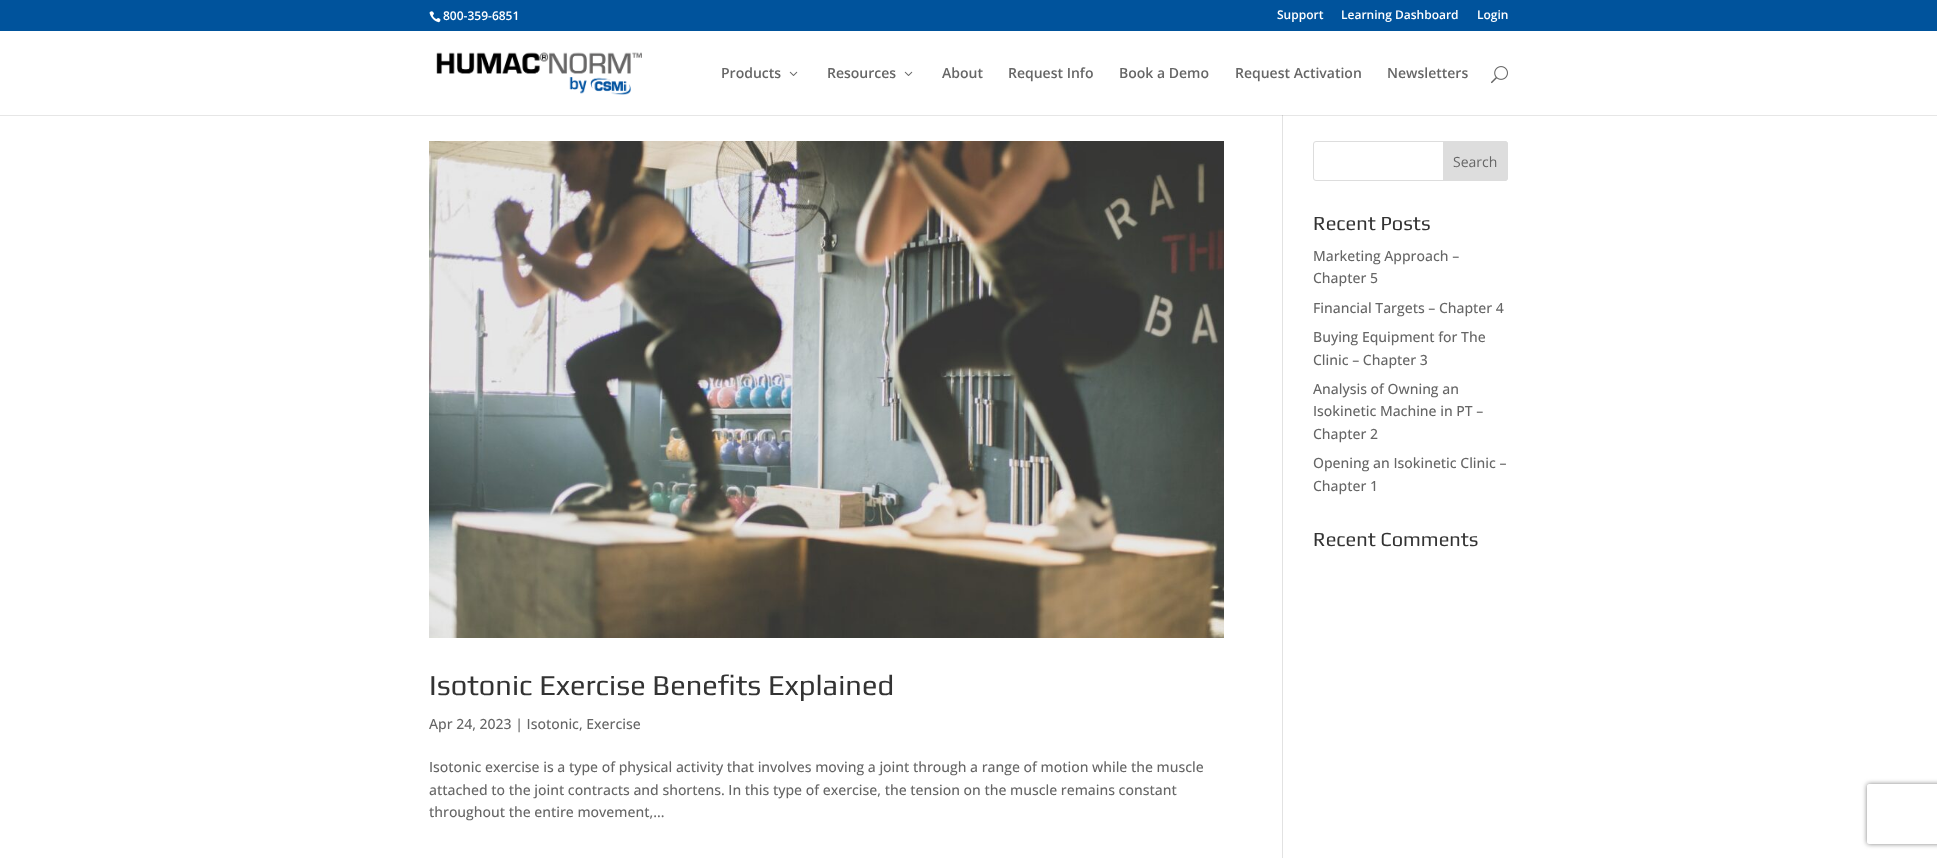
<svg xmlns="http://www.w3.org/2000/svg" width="1937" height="858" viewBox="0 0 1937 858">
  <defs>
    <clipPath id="clip1"><path d="M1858 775H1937V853H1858ZM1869 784H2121C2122 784 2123 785 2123 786V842C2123 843 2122 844 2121 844H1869C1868 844 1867 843 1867 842V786C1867 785 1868 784 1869 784Z" clip-rule="evenodd"/></clipPath>
  </defs>
  <rect width="100%" height="100%" fill="#fff"/>
  <path d="M0 115h1937v1H0z" fill="#e6e6e6"/>
  <path d="M0 0h1937v31H0z" fill="#00539c"/>
  <image x="429" y="11" width="12" height="12" href="img/1.png"/>
  <image x="436" y="52" width="206" height="43" href="img/2.png"/>
  <image x="789" y="71" width="9" height="5" href="img/3.png"/>
  <image x="904" y="71" width="9" height="5" href="img/3.png"/>
  <image x="1491" y="66" width="17" height="18" href="img/4.png"/>
  <path d="M1282 116h1v742H1282z" fill="#e2e2e2"/>
  <path d="M1282 115h1v1H1282z" fill="#cbcbcb"/>
  <rect x="1313.5" y="141.5" width="194" height="39" rx="2.5" fill="none" stroke="#ddd"/>
  <path d="M1443.5 141.5H1505C1506.5 141.5 1507.5 142.5 1507.5 144V178C1507.5 179.5 1506.5 180.5 1505 180.5H1443.5Z" fill="#ddd" stroke="#ddd"/>
  <image x="429" y="141" width="795" height="497" href="img/5.png"/>
  <g clip-path="url(#clip1)">
    <rect x="1867" y="784" width="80" height="60" rx="2" fill="#808080" filter="blur(2.5px)"/>
  </g>
  <g font-family="Open Sans" font-size="12" font-weight="600" fill="#fff">
    <text x="443" y="20">800-359-6851</text>
    <text x="1277" y="19">Support</text>
    <text x="1341" y="19">Learning Dashboard</text>
    <text x="1477" y="19">Login</text>
  </g>
  <g font-family="Open Sans" font-size="14" font-weight="600" fill="#666">
    <text x="721" y="78">Products</text>
    <text x="827" y="78">Resources</text>
    <text x="942" y="78">About</text>
    <text x="1008" y="78">Request Info</text>
    <text x="1119" y="78">Book a Demo</text>
    <text x="1235" y="78">Request Activation</text>
    <text x="1387" y="78">Newsletters</text>
  </g>
  <text x="1453" y="167" font-family="Open Sans" font-size="14" fill="#666">Search</text>
  <text x="1313" y="230" font-family="Play" font-size="20" fill="#333">Recent Posts</text>
  <g font-family="Open Sans" font-size="14" font-weight="500" fill="#666">
    <text x="1313" y="261">Marketing Approach –</text>
    <text x="1313" y="283">Chapter 5</text>
    <text x="1313" y="313">Financial Targets – Chapter 4</text>
    <text x="1313" y="342">Buying Equipment for The</text>
    <text x="1313" y="365">Clinic – Chapter 3</text>
    <text x="1313" y="394">Analysis of Owning an</text>
    <text x="1313" y="416">Isokinetic Machine in PT –</text>
    <text x="1313" y="439">Chapter 2</text>
    <text x="1313" y="468">Opening an Isokinetic Clinic –</text>
    <text x="1313" y="491">Chapter 1</text>
  </g>
  <text x="1313" y="546" font-family="Play" font-size="20" fill="#333">Recent Comments</text>
  <text x="429" y="695" font-family="Play" font-size="29" fill="#333">Isotonic Exercise Benefits Explained</text>
  <g font-family="Open Sans" font-size="14" font-weight="500" fill="#666">
    <text x="429" y="729">Apr 24, 2023 | Isotonic, Exercise</text>
    <text x="429" y="772">Isotonic exercise is a type of physical activity that involves moving a joint through a range of motion while the muscle</text>
    <text x="429" y="795">attached to the joint contracts and shortens. In this type of exercise, the tension on the muscle remains constant</text>
    <text x="429" y="817">throughout the entire movement,...</text>
  </g>
</svg>
